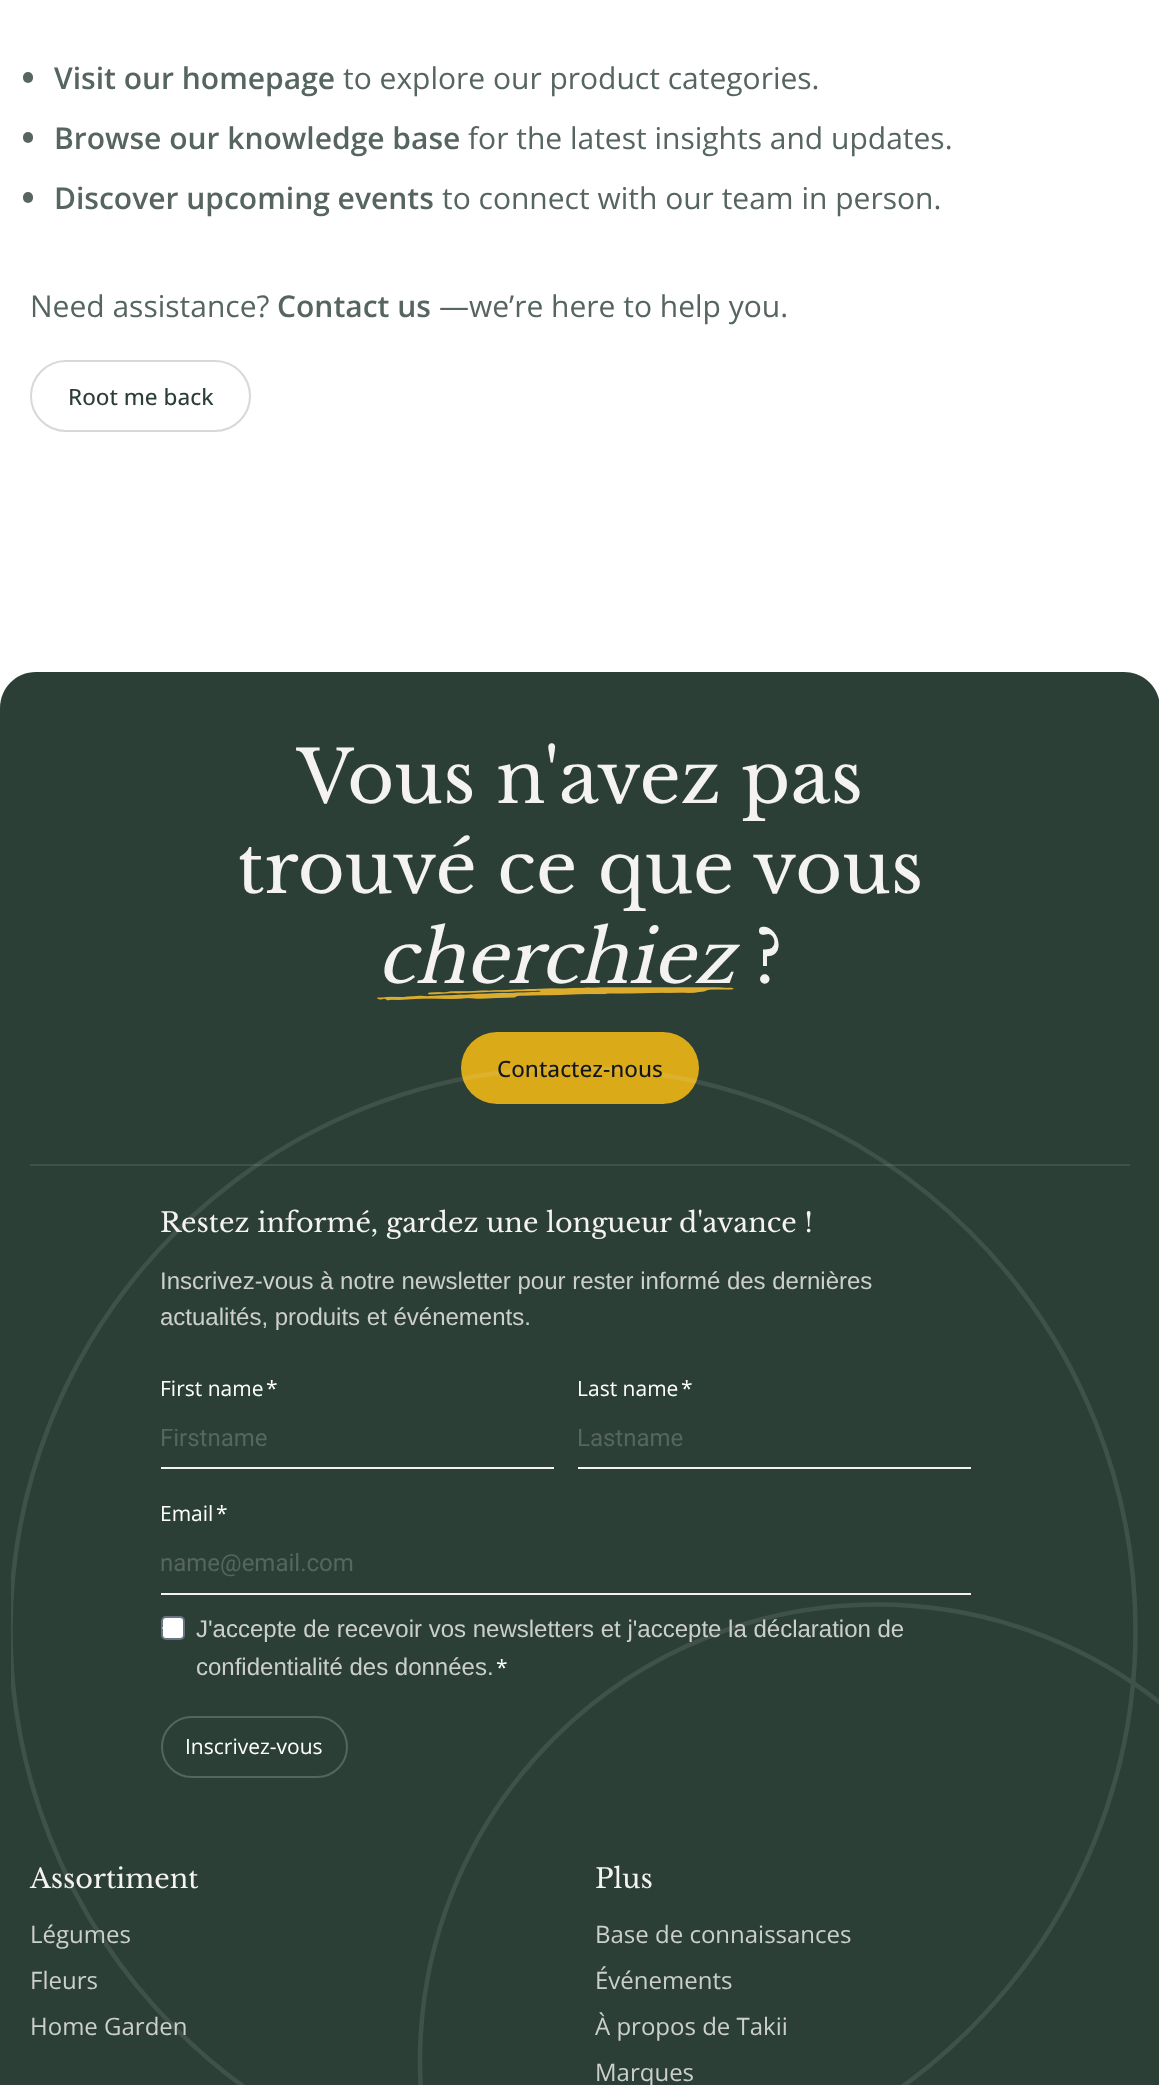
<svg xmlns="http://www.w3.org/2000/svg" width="1159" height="2085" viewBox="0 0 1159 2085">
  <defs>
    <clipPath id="clip1"><path d="M11 608h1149v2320H11z"/></clipPath>
  </defs>
  <rect width="100%" height="100%" fill="#fff"/>
  <rect x="23" y="72" width="10" height="11" rx="5" fill="#56655f"/>
  <rect x="23" y="132" width="10" height="11" rx="5" fill="#56655f"/>
  <rect x="23" y="192" width="10" height="11" rx="5" fill="#56655f"/>
  <rect x="31" y="361" width="219" height="70" rx="35" fill="none" stroke="#d5d9d7" stroke-width="2"/>
  <path d="M36 672H1124C1144 672 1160 688 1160 708V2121H0V708C0 688 16 672 36 672Z" fill="#2c3f37"/>
  <image x="377" y="987" width="357" height="14" href="img/1.png"/>
  <rect x="461" y="1032" width="238" height="72" rx="36" fill="#dbaa18"/>
  <path d="M30 1164h1100v2H30z" fill="#40514a"/>
  <rect x="162" y="1717" width="185" height="60" rx="30" fill="none" stroke="#56655f" stroke-width="2"/>
  <g clip-path="url(#clip1)">
    <circle cx="573" cy="1630.5" r="562.5" fill="none" stroke="#f4f3f11a" stroke-width="4.5"/>
  </g>
  <path d="M161 1467h393v2H161z" fill="#f4f3f1"/>
  <path d="M578 1467h393v2H578z" fill="#f4f3f1"/>
  <path d="M161 1593h810v2H161z" fill="#f4f3f1"/>
  <rect x="162" y="1617" width="22" height="22" rx="4" fill="#fff" stroke="#687484" stroke-width="2"/>
  <path d="M164 1626L171.5 1633.5L169.5 1635.5L162 1628Z" fill="#fff"/>
  <text x="54" y="89" font-family="Open Sans" font-size="30" font-weight="600" fill="#56655f">Visit our homepage</text>
  <text x="343" y="89" font-family="Open Sans" font-size="30" fill="#56655f">to explore our product categories.</text>
  <text x="54" y="149" font-family="Open Sans" font-size="30" font-weight="600" fill="#56655f">Browse our knowledge base</text>
  <text x="468" y="149" font-family="Open Sans" font-size="30" fill="#56655f">for the latest insights and updates.</text>
  <text x="54" y="209" font-family="Open Sans" font-size="30" font-weight="600" fill="#56655f">Discover upcoming events</text>
  <g font-family="Open Sans" font-size="30" fill="#56655f">
    <text x="442" y="209">to connect with our team in person.</text>
    <text x="30" y="317">Need assistance?</text>
  </g>
  <text x="277" y="317" font-family="Open Sans" font-size="30" font-weight="600" fill="#56655f">Contact us</text>
  <text x="439" y="317" font-family="Open Sans" font-size="30" fill="#56655f">—we’re here to help you.</text>
  <text x="68" y="405" font-family="Open Sans" font-size="22.5" font-weight="500" fill="#2c3f37">Root me back</text>
  <g font-family="Libre Baskerville" font-size="72" fill="#f4f3f1">
    <text x="297" y="803">Vous n'avez pas</text>
    <text x="237" y="893">trouvé ce que vous</text>
  </g>
  <text x="377" y="983" font-family="Libre Baskerville" font-size="72" font-style="italic" fill="#f4f3f1">cherchiez</text>
  <text x="754" y="983" font-family="Libre Baskerville" font-size="72" fill="#f4f3f1">?</text>
  <text x="497" y="1077" font-family="Open Sans" font-size="22.5" font-weight="500" fill="#12161d">Contactez-nous</text>
  <text x="160" y="1232" font-family="Libre Baskerville" font-size="27" fill="#f4f3f1">Restez informé, gardez une longueur d'avance !</text>
  <g font-family="Liberation Sans" font-size="24" fill="#cccfcc">
    <text x="160" y="1289">Inscrivez-vous à notre newsletter pour rester informé des dernières</text>
    <text x="160" y="1325">actualités, produits et événements.</text>
  </g>
  <g font-family="Open Sans" font-size="21" fill="#fff">
    <text x="160" y="1396">First name</text>
    <text x="266" y="1396">*</text>
  </g>
  <text x="160" y="1446" font-family="Roboto" font-size="24" fill="#56655f">Firstname</text>
  <g font-family="Open Sans" font-size="21" fill="#fff">
    <text x="577" y="1396">Last name</text>
    <text x="681" y="1396">*</text>
  </g>
  <text x="577" y="1446" font-family="Roboto" font-size="24" fill="#56655f">Lastname</text>
  <g font-family="Open Sans" font-size="21" fill="#fff">
    <text x="160" y="1521">Email</text>
    <text x="216" y="1521">*</text>
  </g>
  <text x="160" y="1571" font-family="Roboto" font-size="24" fill="#56655f">name@email.com</text>
  <text x="185" y="1754" font-family="Open Sans" font-size="21" fill="#fff">Inscrivez-vous</text>
  <text x="30" y="1888" font-family="Libre Baskerville" font-size="27" fill="#f4f3f1">Assortiment</text>
  <g font-family="Open Sans" font-size="24" fill="#cccfcc">
    <text x="30" y="1943">Légumes</text>
    <text x="30" y="1989">Fleurs</text>
    <text x="30" y="2035">Home Garden</text>
  </g>
  <text x="595" y="1888" font-family="Libre Baskerville" font-size="27" fill="#f4f3f1">Plus</text>
  <circle cx="877" cy="2061.5" r="457" fill="none" stroke="#40514a" stroke-width="4.5"/>
  <g font-family="Liberation Sans" font-size="24" fill="#cccfcc">
    <text x="196" y="1675">confidentialité des données.</text>
    <text x="196" y="1637">J'accepte de recevoir vos newsletters et j'accepte la déclaration de</text>
  </g>
  <text x="496" y="1675" font-family="Open Sans" font-size="21" fill="#fff">*</text>
  <g font-family="Open Sans" font-size="24" fill="#cccfcc">
    <text x="595" y="1943">Base de connaissances</text>
    <text x="595" y="1989">Événements</text>
    <text x="595" y="2035">À propos de Takii</text>
    <text x="595" y="2081">Marques</text>
  </g>
</svg>
